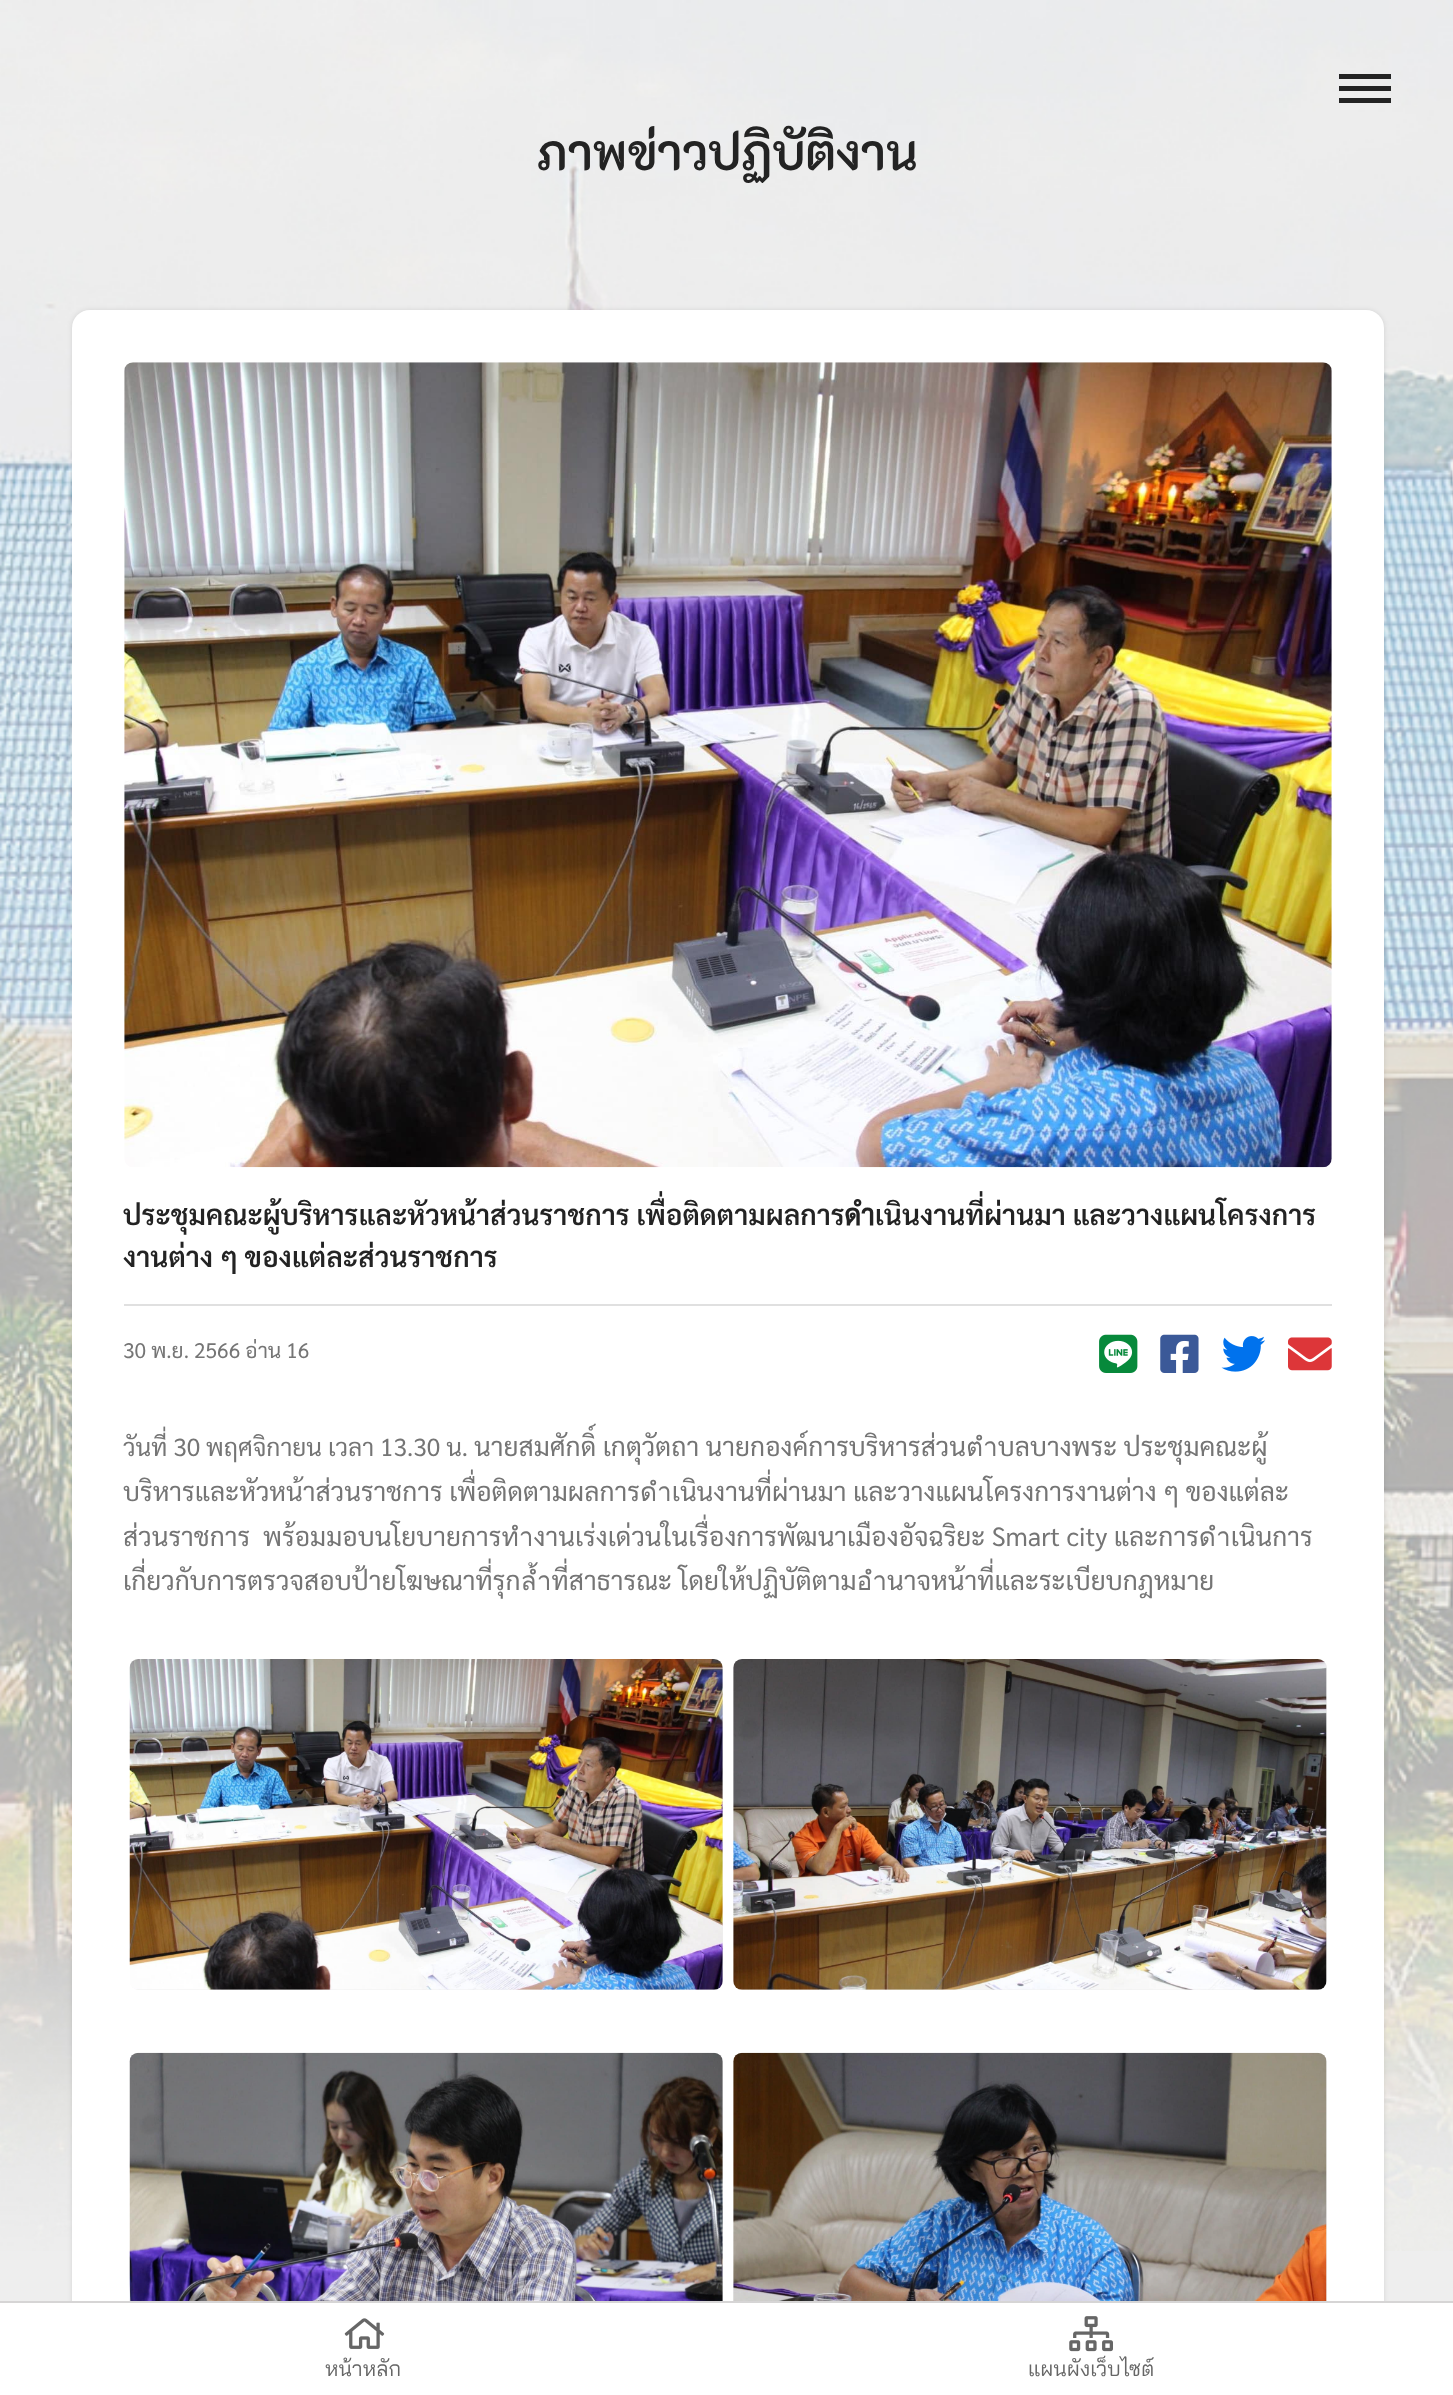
<svg xmlns="http://www.w3.org/2000/svg" width="1453" height="2395" viewBox="0 0 1453 2395">
  <rect width="100%" height="100%" fill="#eee"/>
  <image x="0" y="0" width="1453" height="2251" href="img/1.png"/>
  <path d="M1339 74h52v5H1339z" fill="#232323"/>
  <path d="M1339 86h52v5H1339z" fill="#232323"/>
  <path d="M1339 98h52v5H1339z" fill="#232323"/>
  <rect x="72" y="310" width="1312" height="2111" rx="18" fill="#0000001a" filter="blur(2.5px)"/>
  <rect x="72" y="310" width="1312" height="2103" rx="18" fill="#fff"/>
  <image x="124" y="362" width="1208" height="806" href="img/2.png"/>
  <path d="M124 1304h1208v2H124z" fill="#e0e0e0"/>
  <image x="1099" y="1334" width="39" height="39" href="img/3.png"/>
  <image x="1160" y="1334" width="39" height="39" href="img/4.png"/>
  <image x="1221" y="1336" width="45" height="36" href="img/5.png"/>
  <image x="1288" y="1337" width="44" height="34" href="img/6.png"/>
  <rect x="130" y="1659" width="593" height="331" rx="9" fill="#eee"/>
  <image x="129" y="1659" width="594" height="331" href="img/7.png"/>
  <rect x="733" y="1659" width="594" height="331" rx="9" fill="#eee"/>
  <image x="733" y="1659" width="594" height="331" href="img/8.png"/>
  <rect x="130" y="2053" width="593" height="331" rx="9" fill="#eee"/>
  <image x="129" y="2052" width="594" height="249" href="img/9.png"/>
  <rect x="733" y="2053" width="594" height="331" rx="9" fill="#eee"/>
  <image x="733" y="2052" width="594" height="249" href="img/10.png"/>
  <path d="M-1 2302h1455v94H-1z" fill="none" stroke="#d6d5d5" stroke-width="2"/>
  <path d="M0 2303h1453v92H0z" fill="#fff"/>
  <image x="344" y="2318" width="41" height="31" href="img/11.png"/>
  <image x="1069" y="2316" width="44" height="36" href="img/12.png"/>
  <text x="537" y="170" font-family="'K2D'" font-size="49" font-weight="600" fill="#232323">ภาพข่าวปฏิบัติงาน</text>
  <g font-family="Sarabun" font-size="28" font-weight="600" fill="#232323">
    <text x="123" y="1225">ประชุมคณะผู้บริหารและหัวหน้าส่วนราชการ เพื่อติดตามผลการดำเนินงานที่ผ่านมา และวางแผนโครงการ</text>
    <text x="123" y="1267">งานต่าง ๆ ของแต่ละส่วนราชการ</text>
  </g>
  <text x="123" y="1358" font-family="Sarabun" font-size="21" fill="#757575">30 พ.ย. 2566 อ่าน 16</text>
  <text x="123" y="1456" font-family="Sarabun" font-size="24.5" fill="#757575">วันที่ 30 พฤศจิกายน เวลา 13.30 น.</text>
  <g font-family="Sarabun" font-size="26.25" fill="#757575">
    <text x="474" y="1456">นายสมศักดิ์ เกตุวัตถา นายกองค์การบริหารส่วนตำบลบางพระ ประชุมคณะผู้</text>
    <text x="123" y="1501">บริหารและหัวหน้าส่วนราชการ เพื่อติดตามผลการดำเนินงานที่ผ่านมา และวางแผนโครงการงานต่าง ๆ ของแต่ละ</text>
    <text x="123" y="1546" xml:space="preserve">ส่วนราชการ  พร้อมมอบนโยบายการทำงานเร่งเด่วนในเรื่องการพัฒนาเมืองอัจฉริยะ Smart city และการดำเนินการ</text>
    <text x="123" y="1590">เกี่ยวกับการตรวจสอบป้ายโฆษณาที่รุกล้ำที่สาธารณะ โดยให้ปฏิบัติตามอำนาจหน้าที่และระเบียบกฎหมาย</text>
  </g>
  <g font-family="Bai Jamjuree" font-size="21" fill="#666">
    <text x="325" y="2376">หน้าหลัก</text>
    <text x="1028" y="2376">แผนผังเว็บไซต์</text>
  </g>
</svg>
